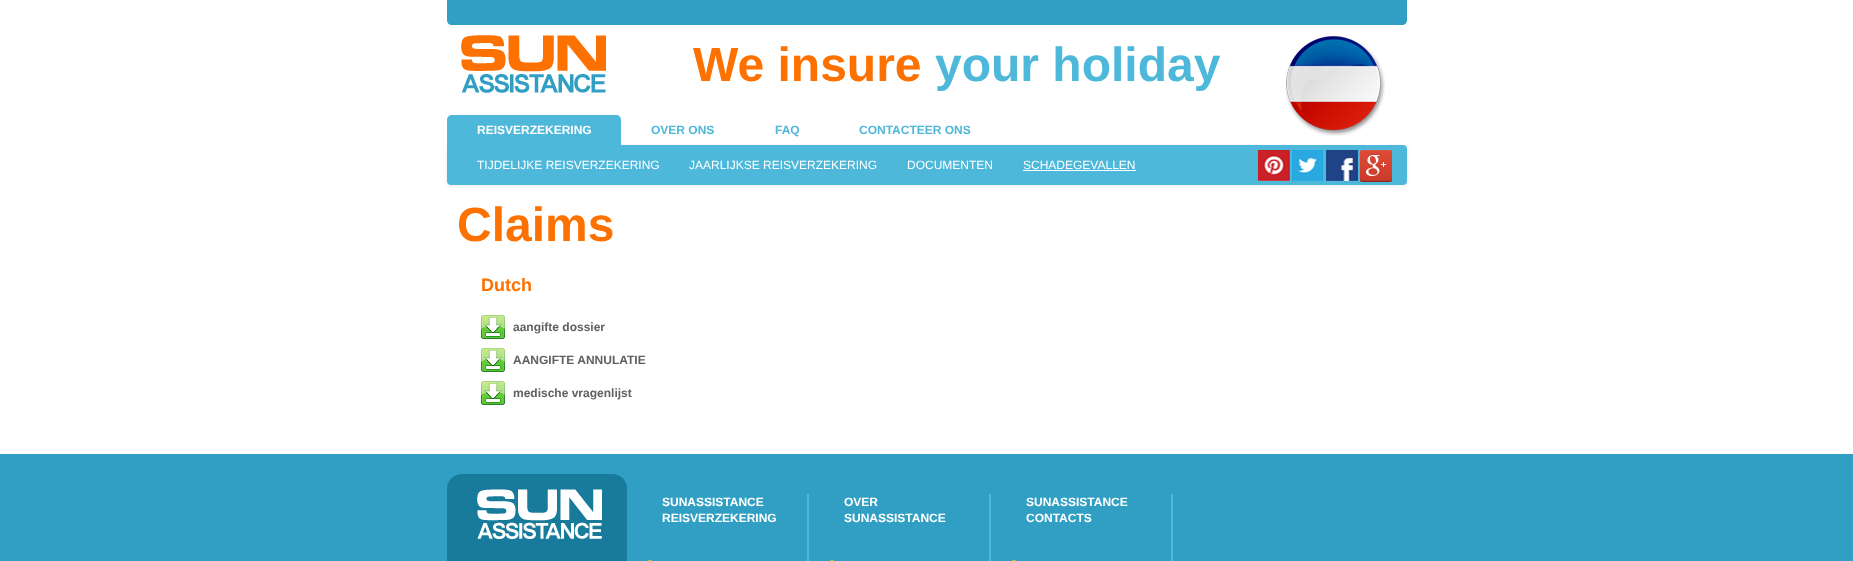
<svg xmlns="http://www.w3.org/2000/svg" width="1853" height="561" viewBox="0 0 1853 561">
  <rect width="100%" height="100%" fill="#fff"/>
  <path d="M447 0H1407V20C1407 23 1405 25 1402 25H452C449 25 447 23 447 20Z" fill="#309fc3"/>
  <image x="461" y="35" width="145" height="58" href="img/1.png"/>
  <image x="1285" y="36" width="100" height="100" href="img/2.png"/>
  <rect x="447" y="146" width="960" height="40" rx="4" fill="#00000012" filter="blur(2px)"/>
  <rect x="447" y="145" width="960" height="40" rx="4" fill="#4eb8db"/>
  <path d="M452 115H616C619 115 621 117 621 120V150H447V120C447 117 449 115 452 115Z" fill="#4eb8db"/>
  <path d="M1023 170h113v1H1023z" fill="#fff"/>
  <image x="1258" y="150" width="32" height="31" href="img/3.png"/>
  <image x="1292" y="150" width="31" height="31" href="img/4.png"/>
  <image x="1326" y="150" width="32" height="31" href="img/5.png"/>
  <image x="1360" y="150" width="32" height="32" href="img/6.png"/>
  <image x="481" y="315" width="24" height="24" href="img/7.png"/>
  <image x="481" y="348" width="24" height="24" href="img/7.png"/>
  <image x="481" y="381" width="24" height="24" href="img/7.png"/>
  <path d="M0 454h1853v107H0z" fill="#309fc3"/>
  <path d="M462 474H612C620.5 474 627 480.5 627 489V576H447V489C447 480.5 453.5 474 462 474Z" fill="#187b9b"/>
  <image x="477" y="489" width="125" height="50" href="img/8.png"/>
  <path d="M807 494h2v67H807z" fill="#48badf"/>
  <rect x="648" y="560" width="4" height="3" rx="2" fill="#ffc000"/>
  <path d="M989 494h2v67H989z" fill="#48badf"/>
  <rect x="830" y="560" width="4" height="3" rx="2" fill="#ffc000"/>
  <path d="M1171 494h2v67H1171z" fill="#48badf"/>
  <rect x="1012" y="560" width="4" height="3" rx="2" fill="#ffc000"/>
  <text x="693" y="81" font-family="Liberation Sans" font-size="48" font-weight="bold" fill="#fc7100">We insure</text>
  <text x="935" y="81" font-family="Liberation Sans" font-size="48" font-weight="bold" fill="#4eb8db">your holiday</text>
  <text x="477" y="134" font-family="Liberation Sans" font-size="12" font-weight="bold" fill="#fff">REISVERZEKERING</text>
  <g font-family="Liberation Sans" font-size="12" font-weight="bold" fill="#4eb8db">
    <text x="651" y="134">OVER ONS</text>
    <text x="775" y="134">FAQ</text>
    <text x="859" y="134">CONTACTEER ONS</text>
  </g>
  <g font-family="Liberation Sans" font-size="12" fill="#fff">
    <text x="477" y="169">TIJDELIJKE REISVERZEKERING</text>
    <text x="689" y="169">JAARLIJKSE REISVERZEKERING</text>
    <text x="907" y="169">DOCUMENTEN</text>
    <text x="1023" y="169">SCHADEGEVALLEN</text>
  </g>
  <text x="457" y="241" font-family="Liberation Sans" font-size="48" font-weight="bold" fill="#fc7100">Claims</text>
  <text x="481" y="291" font-family="Liberation Sans" font-size="18" font-weight="bold" fill="#fc7100">Dutch</text>
  <g font-family="Liberation Sans" font-size="12" font-weight="bold" fill="#606060">
    <text x="513" y="331">aangifte dossier</text>
    <text x="513" y="364">AANGIFTE ANNULATIE</text>
    <text x="513" y="397">medische vragenlijst</text>
  </g>
  <g font-family="Liberation Sans" font-size="12" font-weight="bold" fill="#fff">
    <text x="662" y="506">SUNASSISTANCE</text>
    <text x="662" y="522">REISVERZEKERING</text>
    <text x="844" y="506">OVER</text>
    <text x="844" y="522">SUNASSISTANCE</text>
    <text x="1026" y="506">SUNASSISTANCE</text>
    <text x="1026" y="522">CONTACTS</text>
  </g>
</svg>
